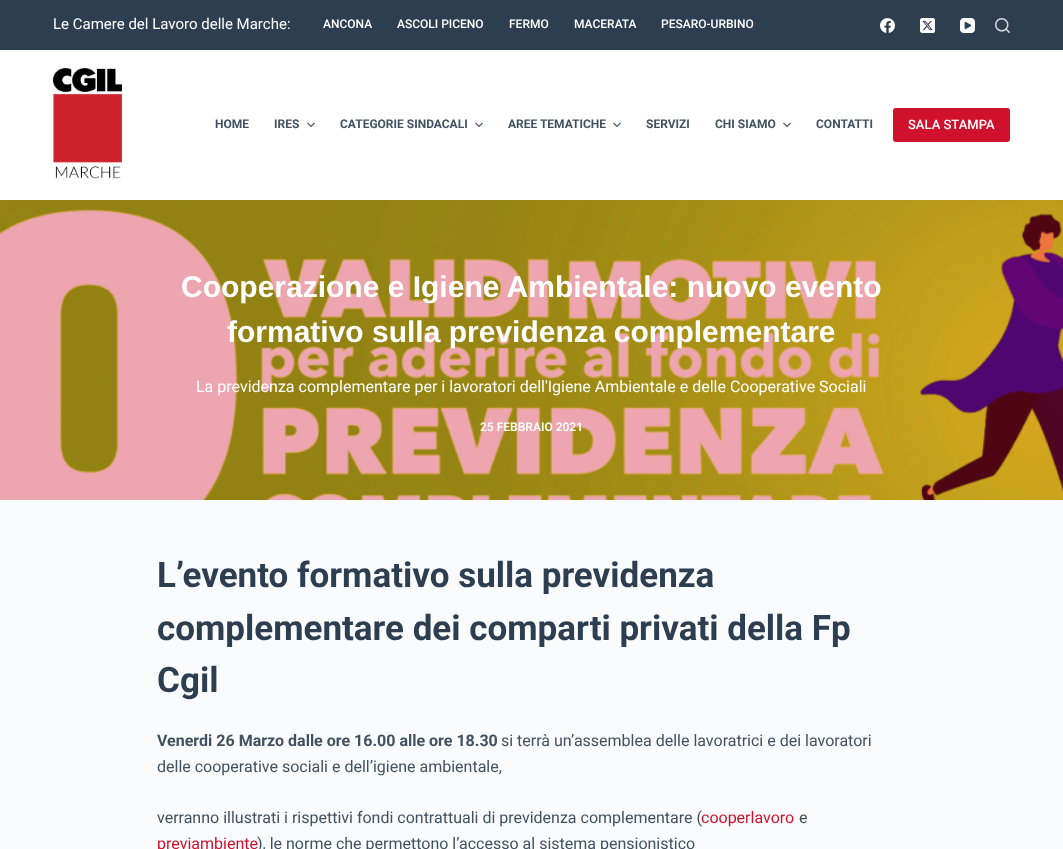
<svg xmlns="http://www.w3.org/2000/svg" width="1063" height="849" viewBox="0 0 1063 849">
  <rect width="100%" height="100%" fill="#fafbfc"/>
  <path d="M0 0h1063v50H0z" fill="#2c3e50"/>
  <image x="880" y="18" width="15" height="15" href="img/1.png"/>
  <image x="920" y="18" width="15" height="15" href="img/2.png"/>
  <image x="960" y="18" width="15" height="15" href="img/3.png"/>
  <image x="995" y="18" width="15" height="15" href="img/4.png"/>
  <path d="M0 50h1063v150H0z" fill="#fff"/>
  <image x="53" y="68" width="69" height="111" href="img/5.png"/>
  <image x="307" y="122" width="8" height="6" href="img/6.png"/>
  <image x="475" y="122" width="8" height="6" href="img/6.png"/>
  <image x="613" y="122" width="8" height="6" href="img/6.png"/>
  <image x="783" y="122" width="8" height="6" href="img/6.png"/>
  <rect x="893" y="108" width="117" height="34" rx="3" fill="#cf112d"/>
  <image x="0" y="200" width="1063" height="300" href="img/7.png"/>
  <text x="53" y="29" font-family="Roboto" font-size="15" fill="#fff">Le Camere del Lavoro delle Marche:</text>
  <g font-family="Roboto" font-size="12" font-weight="500" fill="#fff">
    <text x="323" y="28">ANCONA</text>
    <text x="397" y="28">ASCOLI PICENO</text>
    <text x="509" y="28">FERMO</text>
    <text x="574" y="28">MACERATA</text>
    <text x="661" y="28">PESARO-URBINO</text>
  </g>
  <g font-family="Roboto" font-size="12" font-weight="bold" fill="#415161">
    <text x="215" y="128">HOME</text>
    <text x="274" y="128">IRES</text>
    <text x="340" y="128">CATEGORIE SINDACALI</text>
    <text x="508" y="128">AREE TEMATICHE</text>
    <text x="646" y="128">SERVIZI</text>
    <text x="715" y="128">CHI SIAMO</text>
    <text x="816" y="128">CONTATTI</text>
  </g>
  <text x="908" y="129" font-family="Roboto" font-size="13" font-weight="500" fill="#fff">SALA STAMPA</text>
  <g font-family="Liberation Sans" font-size="30" font-weight="bold" fill="#fff">
    <text x="181" y="297">Cooperazione e Igiene Ambientale: nuovo evento</text>
    <text x="227" y="342">formativo sulla previdenza complementare</text>
  </g>
  <text x="196" y="392" font-family="Roboto" font-size="16" fill="#fff">La previdenza complementare per i lavoratori dell'Igiene Ambientale e delle Cooperative Sociali</text>
  <text x="480" y="431" font-family="Roboto" font-size="12" font-weight="600" fill="#fff">25 FEBBRAIO 2021</text>
  <g font-family="Roboto" font-size="35" font-weight="bold" fill="#2c3e50">
    <text x="157" y="587">L’evento formativo sulla previdenza</text>
    <text x="157" y="640">complementare dei comparti privati della Fp</text>
    <text x="157" y="692">Cgil</text>
  </g>
  <text x="157" y="746" font-family="Roboto" font-size="16" font-weight="bold" fill="#415161">Venerdi 26 Marzo dalle ore 16.00 alle ore 18.30</text>
  <g font-family="Roboto" font-size="16" fill="#415161">
    <text x="501" y="746">si terrà un’assemblea delle lavoratrici e dei lavoratori</text>
    <text x="157" y="772">delle cooperative sociali e dell’igiene ambientale,</text>
    <text x="157" y="823">verranno illustrati i rispettivi fondi contrattuali di previdenza complementare (</text>
  </g>
  <text x="701" y="823" font-family="Roboto" font-size="16" fill="#cf112d">cooperlavoro</text>
  <text x="799" y="823" font-family="Roboto" font-size="16" fill="#415161">e</text>
  <text x="157" y="849" font-family="Roboto" font-size="16" fill="#cf112d">previambiente</text>
  <text x="257" y="849" font-family="Roboto" font-size="16" fill="#415161">), le norme che permettono l’accesso al sistema pensionistico</text>
</svg>
